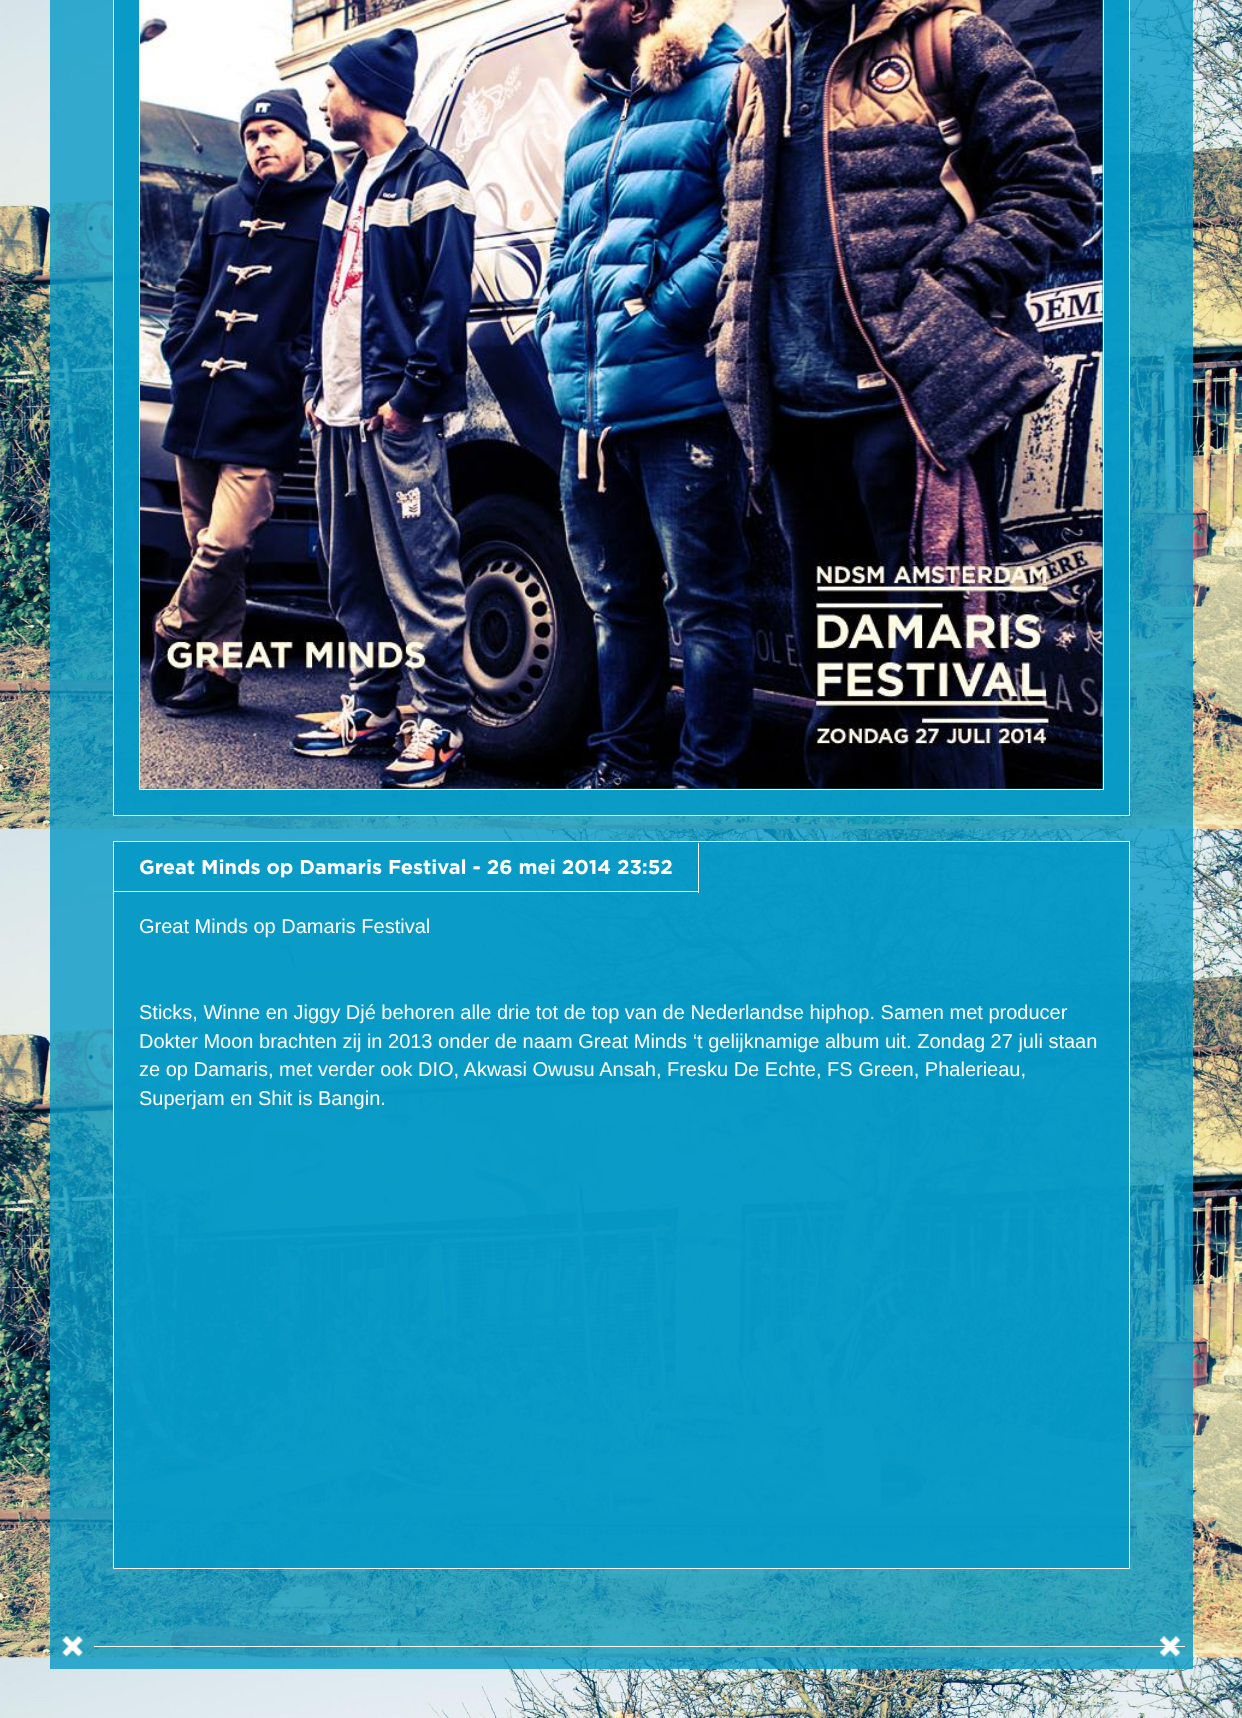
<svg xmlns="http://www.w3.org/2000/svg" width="1242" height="1718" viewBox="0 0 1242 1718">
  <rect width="100%" height="100%" fill="#fff"/>
  <image x="0" y="0" width="1242" height="1718" href="img/1.png"/>
  <path d="M50 0h1143v1669H50z" fill="#0699c6cc"/>
  <path d="M113.5 -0.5h1016v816H113.5z" fill="#0699c6e6" stroke="#fff"/>
  <path d="M139.5 -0.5h964v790H139.5z" fill="none" stroke="#fff"/>
  <image x="140" y="0" width="963" height="789" href="img/2.png"/>
  <path d="M113.5 841.5h1016v727H113.5z" fill="#0699c6e6" stroke="#fff"/>
  <path d="M698 843h1v50H698z" fill="#fff"/>
  <path d="M114 891h585v1H114z" fill="#fff"/>
  <image x="62" y="1636" width="21" height="21" href="img/3.png"/>
  <image x="1160" y="1636" width="20" height="21" href="img/4.png"/>
  <path d="M94 1646h1091v1H94z" fill="#fff"/>
  <text x="139" y="874" font-family="Gotham" font-size="20" font-weight="bold" fill="#fff">Great Minds op Damaris Festival - 26 mei 2014 23:52</text>
  <g font-family="Liberation Sans" font-size="20" fill="#fff">
    <text x="139" y="933">Great Minds op Damaris Festival</text>
    <text x="139" y="1019">Sticks, Winne en Jiggy Djé behoren alle drie tot de top van de Nederlandse hiphop. Samen met producer</text>
    <text x="139" y="1048">Dokter Moon brachten zij in 2013 onder de naam Great Minds ‘t gelijknamige album uit. Zondag 27 juli staan</text>
    <text x="139" y="1076">ze op Damaris, met verder ook DIO, Akwasi Owusu Ansah, Fresku De Echte, FS Green, Phalerieau,</text>
    <text x="139" y="1105">Superjam en Shit is Bangin.</text>
  </g>
</svg>
